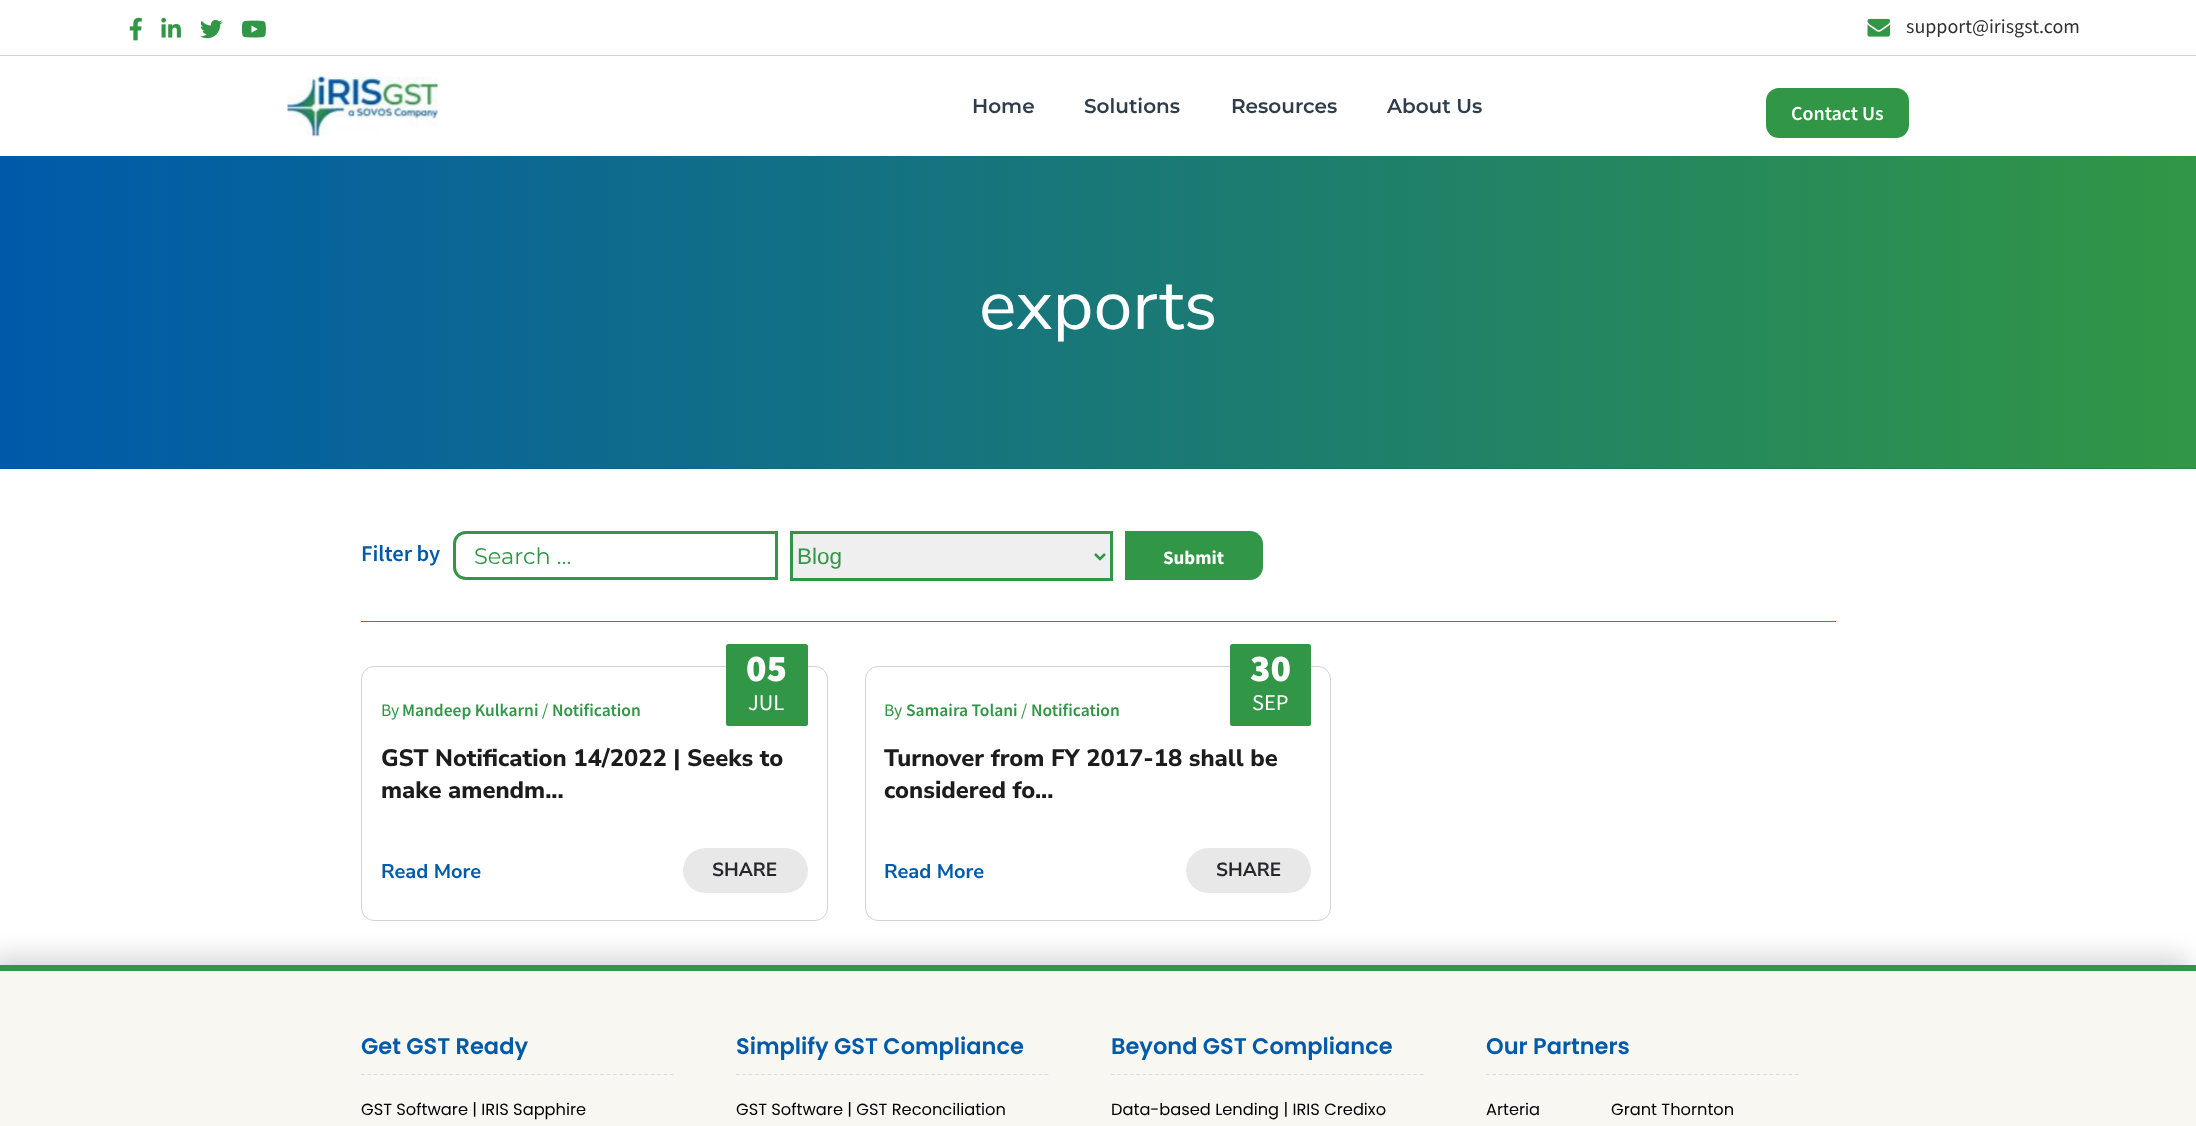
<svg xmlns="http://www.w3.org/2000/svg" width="2196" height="1126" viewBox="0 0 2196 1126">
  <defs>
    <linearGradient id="g1" gradientUnits="userSpaceOnUse" x1="0" y1="563" x2="2196" y2="563"><stop offset="0" stop-color="#005aaa"/><stop offset="1" stop-color="#319645"/></linearGradient>
    <linearGradient id="g2" gradientUnits="userSpaceOnUse" x1="0" y1="563" x2="2196" y2="563"><stop offset="0" stop-color="#03549c"/><stop offset="1" stop-color="#2f8a41"/></linearGradient>
  </defs>
  <rect width="100%" height="100%" fill="#fff"/>
  <path d="M0 55h2196v1H0z" fill="#d3d3d3"/>
  <image x="129" y="17" width="13" height="24" href="img/1.png"/>
  <image x="161" y="17" width="20" height="21" href="img/2.png"/>
  <image x="200" y="19" width="23" height="20" href="img/3.png"/>
  <image x="241" y="20" width="25" height="18" href="img/4.png"/>
  <image x="1867" y="18" width="23" height="19" href="img/5.png"/>
  <image x="287" y="76" width="151" height="61" href="img/6.png"/>
  <rect x="1766" y="88" width="143" height="50" rx="13" fill="#319645"/>
  <path d="M0 156h2196v312H0z" fill="url(#g1)"/>
  <path d="M0 468h2196v1H0z" fill="url(#g2)"/>
  <path d="M361 621h1475v1H361z" fill="#319645"/>
  <path d="M466 532.5H776.5V578.5H466C459.5 578.5 454.5 573.5 454.5 567V544C454.5 537.5 459.5 532.5 466 532.5Z" fill="none" stroke="#319645" stroke-width="3"/>
  <path d="M791.5 532.5h320v47H791.5z" fill="#efefef" stroke="#319645" stroke-width="3"/>
  <path d="M1095 554L1100 559L1105 554" fill="none" stroke="#319645" stroke-width="2.5"/>
  <path d="M1125 531H1250C1257 531 1263 537 1263 544V567C1263 574 1257 580 1250 580H1125Z" fill="#319645"/>
  <rect x="361.5" y="666.5" width="466" height="254" rx="12.5" fill="none" stroke="#d3d3d3"/>
  <rect x="726" y="644" width="82" height="82" rx="2.5" fill="#319645"/>
  <rect x="683" y="848" width="125" height="45" rx="22.5" fill="#e8e8e8"/>
  <rect x="865.5" y="666.5" width="465" height="254" rx="12.5" fill="none" stroke="#d3d3d3"/>
  <rect x="1230" y="644" width="81" height="82" rx="2.5" fill="#319645"/>
  <rect x="1186" y="848" width="125" height="45" rx="22.5" fill="#e8e8e8"/>
  <path d="M-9 956h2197v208H-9z" fill="#00000029" filter="blur(12.5px)"/>
  <path d="M0 971h2196v155H0z" fill="#f9f7f1"/>
  <path d="M0 965h2196v6H0z" fill="#319645"/>
  <path d="M361 1074.5H674" fill="none" stroke="#ddd" stroke-width="1.2" stroke-dasharray="3.75 2.55"/>
  <path d="M736 1074.5H1049" fill="none" stroke="#ddd" stroke-width="1.2" stroke-dasharray="3.75 2.55"/>
  <path d="M1111 1074.5H1424" fill="none" stroke="#ddd" stroke-width="1.2" stroke-dasharray="3.75 2.55"/>
  <path d="M1486 1074.5H1799" fill="none" stroke="#ddd" stroke-width="1.2" stroke-dasharray="3.75 2.55"/>
  <text x="1906" y="33" font-family="Source Sans Pro" font-size="20" fill="#303030">support@irisgst.com</text>
  <g font-family="Montserrat" font-size="20" font-weight="600" fill="#2e3d49">
    <text x="972" y="113">Home</text>
    <text x="1084" y="113">Solutions</text>
    <text x="1231" y="113">Resources</text>
    <text x="1387" y="113">About Us</text>
  </g>
  <text x="1791" y="120" font-family="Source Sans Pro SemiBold" font-size="20" font-weight="600" fill="#fff">Contact Us</text>
  <text x="979" y="329" font-family="Nunito Sans" font-size="70" fill="#fff">exports</text>
  <text x="361" y="561" font-family="Source Sans Pro SemiBold" font-size="22.5" font-weight="600" fill="#005aaa">Filter by</text>
  <text x="474" y="564" font-family="Montserrat" font-size="22.5" fill="#319645">Search …</text>
  <text x="797" y="564" font-family="Liberation Sans" font-size="22.5" fill="#319645">Blog</text>
  <text x="1163" y="564" font-family="Source Sans Pro" font-size="19" font-weight="bold" fill="#fff">Submit</text>
  <text x="381" y="716" font-family="Source Sans Pro" font-size="17.5" fill="#319645">By</text>
  <text x="402" y="716" font-family="Source Sans Pro SemiBold" font-size="17.5" font-weight="600" fill="#319645">Mandeep Kulkarni</text>
  <text x="542" y="716" font-family="Source Sans Pro" font-size="17.5" fill="#319645">/</text>
  <text x="552" y="716" font-family="Source Sans Pro SemiBold" font-size="17.5" font-weight="600" fill="#319645">Notification</text>
  <text x="746" y="681" font-family="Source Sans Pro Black" font-size="38" font-weight="900" fill="#fff">05</text>
  <text x="748" y="710" font-family="Source Sans Pro" font-size="22.5" fill="#fff">JUL</text>
  <g font-family="Nunito Sans" font-size="23.75" font-weight="800" fill="#1c1c1c">
    <text x="381" y="766">GST Notification 14/2022 | Seeks to</text>
    <text x="381" y="798">make amendm...</text>
  </g>
  <text x="381" y="878" font-family="Nunito Sans" font-size="20" font-weight="bold" fill="#005aaa">Read More</text>
  <text x="712" y="876" font-family="Nunito Sans" font-size="19" font-weight="bold" fill="#28262b">SHARE</text>
  <text x="884" y="716" font-family="Source Sans Pro" font-size="17.5" fill="#319645">By</text>
  <text x="906" y="716" font-family="Source Sans Pro SemiBold" font-size="17.5" font-weight="600" fill="#319645">Samaira Tolani</text>
  <text x="1021" y="716" font-family="Source Sans Pro" font-size="17.5" fill="#319645">/</text>
  <text x="1031" y="716" font-family="Source Sans Pro SemiBold" font-size="17.5" font-weight="600" fill="#319645">Notification</text>
  <text x="1250" y="681" font-family="Source Sans Pro Black" font-size="38" font-weight="900" fill="#fff">30</text>
  <text x="1252" y="710" font-family="Source Sans Pro" font-size="22.5" fill="#fff">SEP</text>
  <g font-family="Nunito Sans" font-size="23.75" font-weight="800" fill="#1c1c1c">
    <text x="884" y="766">Turnover from FY 2017-18 shall be</text>
    <text x="884" y="798">considered fo...</text>
  </g>
  <text x="884" y="878" font-family="Nunito Sans" font-size="20" font-weight="bold" fill="#005aaa">Read More</text>
  <text x="1216" y="876" font-family="Nunito Sans" font-size="19" font-weight="bold" fill="#28262b">SHARE</text>
  <text x="361" y="1054" font-family="Poppins" font-size="22.5" font-weight="600" fill="#005aaa">Get GST Ready</text>
  <text x="361" y="1115" font-family="Poppins" font-size="16.25" fill="#000">GST Software | IRIS Sapphire</text>
  <text x="736" y="1054" font-family="Poppins" font-size="22.5" font-weight="600" fill="#005aaa">Simplify GST Compliance</text>
  <text x="736" y="1115" font-family="Poppins" font-size="16.25" fill="#000">GST Software | GST Reconciliation</text>
  <text x="1111" y="1054" font-family="Poppins" font-size="22.5" font-weight="600" fill="#005aaa">Beyond GST Compliance</text>
  <text x="1111" y="1115" font-family="Poppins" font-size="16.25" fill="#000">Data-based Lending | IRIS Credixo</text>
  <text x="1486" y="1054" font-family="Poppins" font-size="22.5" font-weight="600" fill="#005aaa">Our Partners</text>
  <g font-family="Poppins" font-size="16.25" fill="#000">
    <text x="1486" y="1115">Arteria</text>
    <text x="1611" y="1115">Grant Thornton</text>
  </g>
</svg>
